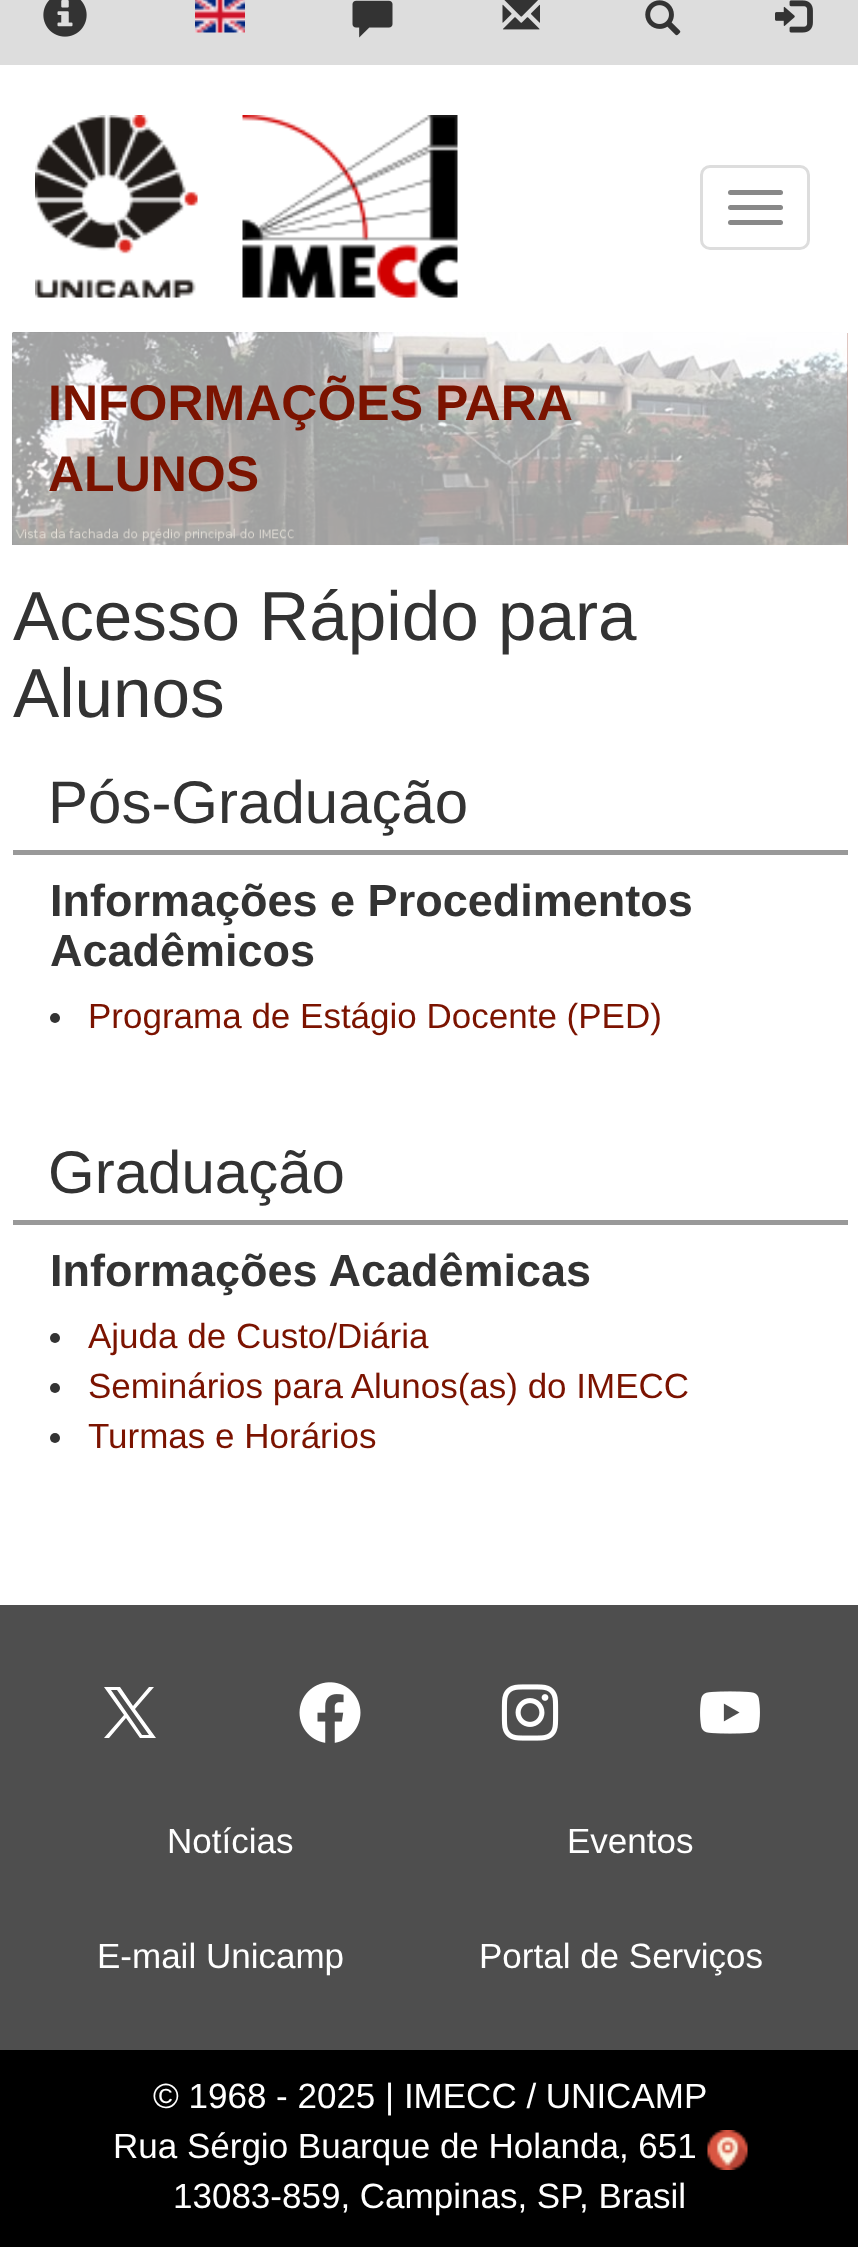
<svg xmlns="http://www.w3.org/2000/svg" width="858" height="2247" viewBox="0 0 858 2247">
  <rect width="100%" height="100%" fill="#fff"/>
  <path d="M0 0h858v65H0z" fill="#ddd"/>
  <image x="43" y="0" width="44" height="37" href="img/1.png"/>
  <image x="195" y="0" width="50" height="33" href="img/2.png"/>
  <image x="352" y="0" width="41" height="38" href="img/3.png"/>
  <image x="502" y="0" width="38" height="30" href="img/4.png"/>
  <image x="645" y="0" width="36" height="36" href="img/5.png"/>
  <image x="775" y="0" width="38" height="33" href="img/6.png"/>
  <image x="35" y="115" width="163" height="183" href="img/7.png"/>
  <image x="242" y="115" width="216" height="183" href="img/8.png"/>
  <rect x="701.5" y="166.5" width="107" height="82" rx="8.5" fill="none" stroke="#ddd" stroke-width="3"/>
  <rect x="728" y="190" width="55" height="5" rx="2.5" fill="#888"/>
  <rect x="728" y="205" width="55" height="5" rx="2.5" fill="#888"/>
  <rect x="728" y="220" width="55" height="5" rx="2.5" fill="#888"/>
  <path d="M847 333h1v212H847z" fill="#c08e85"/>
  <image x="12" y="332" width="836" height="213" href="img/9.png"/>
  <path d="M13 850h835v5H13z" fill="#999"/>
  <circle cx="55" cy="1018" r="5" fill="#333"/>
  <path d="M13 1220h835v5H13z" fill="#999"/>
  <circle cx="55" cy="1338" r="5" fill="#333"/>
  <circle cx="55" cy="1388" r="5" fill="#333"/>
  <circle cx="55" cy="1438" r="5" fill="#333"/>
  <path d="M0 1605h858v445H0z" fill="#4e4e4e"/>
  <path d="M135 1709L154 1687H149L133 1706L120 1687H104L124 1715L104 1738H109L126 1718L140 1738H156ZM129 1716L111 1690H117L149 1735H142Z" fill="#fff"/>
  <image x="299" y="1682" width="62" height="61" href="img/10.png"/>
  <image x="501" y="1684" width="58" height="57" href="img/11.png"/>
  <image x="700" y="1691" width="60" height="43" href="img/12.png"/>
  <path d="M0 2050h858v197H0z" fill="#000"/>
  <image x="707" y="2130" width="41" height="40" href="img/13.png"/>
  <g font-family="Liberation Sans" font-size="50" font-weight="bold" fill="#7b1300">
    <text x="48" y="420" word-spacing="-2">INFORMAÇÕES PARA</text>
    <text x="48" y="491">ALUNOS</text>
  </g>
  <g font-family="Liberation Sans" font-size="69.25" fill="#333">
    <text x="13" y="640">Acesso Rápido para</text>
    <text x="13" y="717">Alunos</text>
  </g>
  <text x="48" y="823" font-family="Liberation Sans" font-size="60" fill="#333">Pós-Graduação</text>
  <g font-family="Liberation Sans" font-size="45" font-weight="bold" fill="#333">
    <text x="50" y="916">Informações e Procedimentos</text>
    <text x="50" y="966">Acadêmicos</text>
  </g>
  <text x="88" y="1028" font-family="Liberation Sans" font-size="35" fill="#7b1300">Programa de Estágio Docente (PED)</text>
  <text x="48" y="1193" font-family="Liberation Sans" font-size="60" fill="#333">Graduação</text>
  <text x="50" y="1286" font-family="Liberation Sans" font-size="45" font-weight="bold" fill="#333">Informações Acadêmicas</text>
  <g font-family="Liberation Sans" font-size="35" fill="#7b1300">
    <text x="88" y="1348">Ajuda de Custo/Diária</text>
    <text x="88" y="1398">Seminários para Alunos(as) do IMECC</text>
    <text x="88" y="1448">Turmas e Horários</text>
  </g>
  <g font-family="Liberation Sans" font-size="35" fill="#fff">
    <text x="167" y="1853">Notícias</text>
    <text x="567" y="1853">Eventos</text>
    <text x="97" y="1968">E-mail Unicamp</text>
    <text x="479" y="1968">Portal de Serviços</text>
    <text x="153" y="2108">© 1968 - 2025 | IMECC / UNICAMP</text>
    <text x="113" y="2158">Rua Sérgio Buarque de Holanda, 651</text>
    <text x="173" y="2208">13083-859, Campinas, SP, Brasil</text>
  </g>
</svg>
